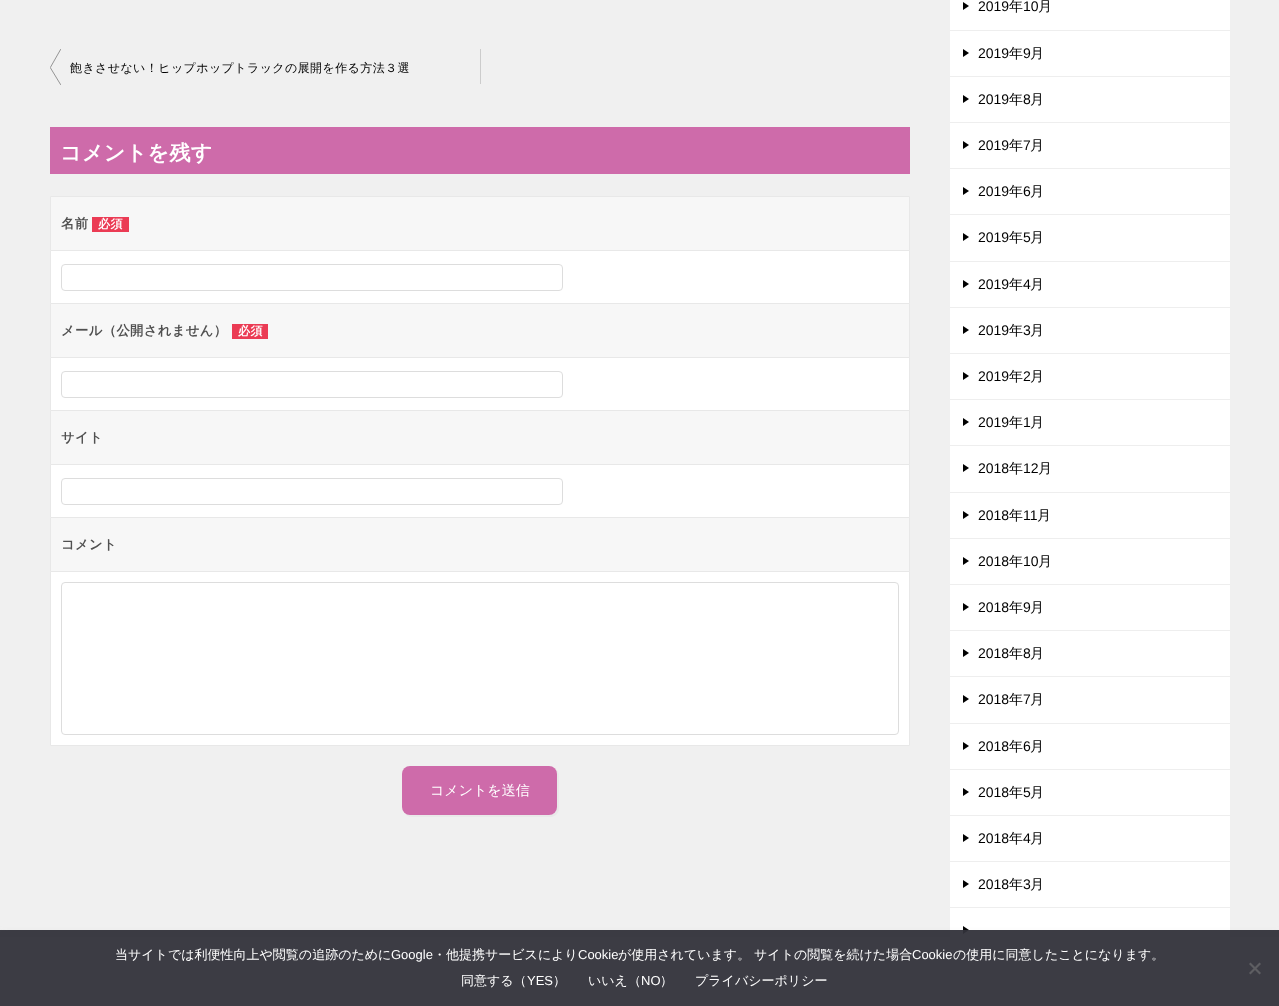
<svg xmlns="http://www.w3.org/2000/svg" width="1279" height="1006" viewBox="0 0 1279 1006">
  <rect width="100%" height="100%" fill="#f0f0f0"/>
  <image x="50" y="49" width="11" height="36" href="img/1.png"/>
  <path d="M480 49h1v35H480z" fill="#ccc"/>
  <path d="M50 127h860v47H50z" fill="#ce6baa"/>
  <path d="M50.5 196.5h859v54H50.5z" fill="#f7f7f7" stroke="#e8e8e8"/>
  <path d="M92 217h37v15H92z" fill="#eb3b54"/>
  <path d="M50.5 250.5h859v53H50.5z" fill="#fff" stroke="#e8e8e8"/>
  <rect x="61.5" y="264.5" width="501" height="26" rx="3.5" fill="none" stroke="#ddd"/>
  <path d="M50.5 303.5h859v54H50.5z" fill="#f7f7f7" stroke="#e8e8e8"/>
  <path d="M232 324h36v15H232z" fill="#eb3b54"/>
  <path d="M50.5 357.5h859v53H50.5z" fill="#fff" stroke="#e8e8e8"/>
  <rect x="61.5" y="371.5" width="501" height="26" rx="3.5" fill="none" stroke="#ddd"/>
  <path d="M50.5 410.5h859v54H50.5z" fill="#f7f7f7" stroke="#e8e8e8"/>
  <path d="M50.5 464.5h859v53H50.5z" fill="#fff" stroke="#e8e8e8"/>
  <rect x="61.5" y="478.5" width="501" height="26" rx="3.5" fill="none" stroke="#ddd"/>
  <path d="M50.5 517.5h859v54H50.5z" fill="#f7f7f7" stroke="#e8e8e8"/>
  <path d="M50.5 571.5h859v174H50.5z" fill="#fff" stroke="#e8e8e8"/>
  <rect x="61.5" y="582.5" width="837" height="152" rx="3.5" fill="none" stroke="#ddd"/>
  <path d="M405 814C407 816 409 817 412 817H551C555 817 559 813 559 809V776C559 773 558 771 556 769C556 771 557 772 557 774V807C557 811 553 815 549 815H410C408 815 407 814 405 814Z" fill="#e9e9e9"/>
  <rect x="402" y="766" width="155" height="49" rx="8" fill="#ce6baa"/>
  <path d="M950 0h280v937H950z" fill="#fff"/>
  <path d="M950 30h280v1H950z" fill="#eee"/>
  <path d="M963 10V2L969 6Z" fill="#000"/>
  <path d="M950 76h280v1H950z" fill="#eee"/>
  <path d="M963 57V49L969 53Z" fill="#000"/>
  <path d="M950 122h280v1H950z" fill="#eee"/>
  <path d="M963 103V95L969 99Z" fill="#000"/>
  <path d="M950 168h280v1H950z" fill="#eee"/>
  <path d="M963 149V141L969 145Z" fill="#000"/>
  <path d="M950 214h280v1H950z" fill="#eee"/>
  <path d="M963 195V187L969 191Z" fill="#000"/>
  <path d="M950 261h280v1H950z" fill="#eee"/>
  <path d="M963 241V233L969 237Z" fill="#000"/>
  <path d="M950 307h280v1H950z" fill="#eee"/>
  <path d="M963 288V280L969 284Z" fill="#000"/>
  <path d="M950 353h280v1H950z" fill="#eee"/>
  <path d="M963 334V326L969 330Z" fill="#000"/>
  <path d="M950 399h280v1H950z" fill="#eee"/>
  <path d="M963 380V372L969 376Z" fill="#000"/>
  <path d="M950 445h280v1H950z" fill="#eee"/>
  <path d="M963 426V418L969 422Z" fill="#000"/>
  <path d="M950 492h280v1H950z" fill="#eee"/>
  <path d="M963 472V464L969 468Z" fill="#000"/>
  <path d="M950 538h280v1H950z" fill="#eee"/>
  <path d="M963 519V511L969 515Z" fill="#000"/>
  <path d="M950 584h280v1H950z" fill="#eee"/>
  <path d="M963 565V557L969 561Z" fill="#000"/>
  <path d="M950 630h280v1H950z" fill="#eee"/>
  <path d="M963 611V603L969 607Z" fill="#000"/>
  <path d="M950 676h280v1H950z" fill="#eee"/>
  <path d="M963 657V649L969 653Z" fill="#000"/>
  <path d="M950 723h280v1H950z" fill="#eee"/>
  <path d="M963 703V695L969 699Z" fill="#000"/>
  <path d="M950 769h280v1H950z" fill="#eee"/>
  <path d="M963 750V742L969 746Z" fill="#000"/>
  <path d="M950 815h280v1H950z" fill="#eee"/>
  <path d="M963 796V788L969 792Z" fill="#000"/>
  <path d="M950 861h280v1H950z" fill="#eee"/>
  <path d="M963 842V834L969 838Z" fill="#000"/>
  <path d="M950 907h280v1H950z" fill="#eee"/>
  <path d="M963 888V880L969 884ZM963 934V926L969 930Z" fill="#000"/>
  <path d="M0 936h1279v69H0z" fill="#acabab4d" filter="blur(5px)"/>
  <path d="M0 937h1279v69H0z" fill="#fff"/>
  <path d="M0 930h1279v76H0z" fill="#32323af2"/>
  <path d="M1259.5 962.5L1261 964L1250.5 974.5L1249 973Z" fill="#5e5e62"/>
  <path d="M1249 964L1250.5 962.5L1261 973L1259.5 974.5Z" fill="#5e5e62"/>
  <text x="70" y="72" font-family="WenQuanYi Zen Hei" font-size="12" font-weight="500" letter-spacing="0.4" fill="#000">飽きさせない！ヒップホップトラックの展開を作る方法３選</text>
  <text x="60" y="160" font-family="WenQuanYi Zen Hei" font-size="21" font-weight="bold" letter-spacing="0.4" fill="#fff">コメントを残す</text>
  <text x="61" y="228" font-family="WenQuanYi Zen Hei" font-size="13.3" font-weight="bold" letter-spacing="0.4" fill="#505050">名前</text>
  <text x="98" y="228" font-family="WenQuanYi Zen Hei" font-size="12" font-weight="bold" letter-spacing="0.4" fill="#fff">必須</text>
  <text x="61" y="335" font-family="WenQuanYi Zen Hei" font-size="13.3" font-weight="bold" letter-spacing="0.4" fill="#505050">メール（公開されません）</text>
  <text x="238" y="335" font-family="WenQuanYi Zen Hei" font-size="12" font-weight="bold" letter-spacing="0.4" fill="#fff">必須</text>
  <g font-family="WenQuanYi Zen Hei" font-size="13.3" font-weight="bold" letter-spacing="0.4" fill="#505050">
    <text x="61" y="442">サイト</text>
    <text x="61" y="549">コメント</text>
  </g>
  <text x="430" y="795" font-family="WenQuanYi Zen Hei" font-size="14" font-weight="500" fill="#fff">コメントを送信</text>
  <text x="978" y="11" font-family="Liberation Sans" font-size="14" fill="#000">2019</text>
  <text x="1009" y="11" font-family="WenQuanYi Zen Hei" font-size="14" font-weight="500" fill="#000">年</text>
  <text x="1023" y="11" font-family="Liberation Sans" font-size="14" fill="#000">10</text>
  <text x="1038" y="11" font-family="WenQuanYi Zen Hei" font-size="14" font-weight="500" fill="#000">月</text>
  <text x="978" y="58" font-family="Liberation Sans" font-size="14" fill="#000">2019</text>
  <text x="1009" y="58" font-family="WenQuanYi Zen Hei" font-size="14" font-weight="500" fill="#000">年</text>
  <text x="1023" y="58" font-family="Liberation Sans" font-size="14" fill="#000">9</text>
  <text x="1030" y="58" font-family="WenQuanYi Zen Hei" font-size="14" font-weight="500" fill="#000">月</text>
  <text x="978" y="104" font-family="Liberation Sans" font-size="14" fill="#000">2019</text>
  <text x="1009" y="104" font-family="WenQuanYi Zen Hei" font-size="14" font-weight="500" fill="#000">年</text>
  <text x="1023" y="104" font-family="Liberation Sans" font-size="14" fill="#000">8</text>
  <text x="1030" y="104" font-family="WenQuanYi Zen Hei" font-size="14" font-weight="500" fill="#000">月</text>
  <text x="978" y="150" font-family="Liberation Sans" font-size="14" fill="#000">2019</text>
  <text x="1009" y="150" font-family="WenQuanYi Zen Hei" font-size="14" font-weight="500" fill="#000">年</text>
  <text x="1023" y="150" font-family="Liberation Sans" font-size="14" fill="#000">7</text>
  <text x="1030" y="150" font-family="WenQuanYi Zen Hei" font-size="14" font-weight="500" fill="#000">月</text>
  <text x="978" y="196" font-family="Liberation Sans" font-size="14" fill="#000">2019</text>
  <text x="1009" y="196" font-family="WenQuanYi Zen Hei" font-size="14" font-weight="500" fill="#000">年</text>
  <text x="1023" y="196" font-family="Liberation Sans" font-size="14" fill="#000">6</text>
  <text x="1030" y="196" font-family="WenQuanYi Zen Hei" font-size="14" font-weight="500" fill="#000">月</text>
  <text x="978" y="242" font-family="Liberation Sans" font-size="14" fill="#000">2019</text>
  <text x="1009" y="242" font-family="WenQuanYi Zen Hei" font-size="14" font-weight="500" fill="#000">年</text>
  <text x="1023" y="242" font-family="Liberation Sans" font-size="14" fill="#000">5</text>
  <text x="1030" y="242" font-family="WenQuanYi Zen Hei" font-size="14" font-weight="500" fill="#000">月</text>
  <text x="978" y="289" font-family="Liberation Sans" font-size="14" fill="#000">2019</text>
  <text x="1009" y="289" font-family="WenQuanYi Zen Hei" font-size="14" font-weight="500" fill="#000">年</text>
  <text x="1023" y="289" font-family="Liberation Sans" font-size="14" fill="#000">4</text>
  <text x="1030" y="289" font-family="WenQuanYi Zen Hei" font-size="14" font-weight="500" fill="#000">月</text>
  <text x="978" y="335" font-family="Liberation Sans" font-size="14" fill="#000">2019</text>
  <text x="1009" y="335" font-family="WenQuanYi Zen Hei" font-size="14" font-weight="500" fill="#000">年</text>
  <text x="1023" y="335" font-family="Liberation Sans" font-size="14" fill="#000">3</text>
  <text x="1030" y="335" font-family="WenQuanYi Zen Hei" font-size="14" font-weight="500" fill="#000">月</text>
  <text x="978" y="381" font-family="Liberation Sans" font-size="14" fill="#000">2019</text>
  <text x="1009" y="381" font-family="WenQuanYi Zen Hei" font-size="14" font-weight="500" fill="#000">年</text>
  <text x="1023" y="381" font-family="Liberation Sans" font-size="14" fill="#000">2</text>
  <text x="1030" y="381" font-family="WenQuanYi Zen Hei" font-size="14" font-weight="500" fill="#000">月</text>
  <text x="978" y="427" font-family="Liberation Sans" font-size="14" fill="#000">2019</text>
  <text x="1009" y="427" font-family="WenQuanYi Zen Hei" font-size="14" font-weight="500" fill="#000">年</text>
  <text x="1023" y="427" font-family="Liberation Sans" font-size="14" fill="#000">1</text>
  <text x="1030" y="427" font-family="WenQuanYi Zen Hei" font-size="14" font-weight="500" fill="#000">月</text>
  <text x="978" y="473" font-family="Liberation Sans" font-size="14" fill="#000">2018</text>
  <text x="1009" y="473" font-family="WenQuanYi Zen Hei" font-size="14" font-weight="500" fill="#000">年</text>
  <text x="1023" y="473" font-family="Liberation Sans" font-size="14" fill="#000">12</text>
  <text x="1038" y="473" font-family="WenQuanYi Zen Hei" font-size="14" font-weight="500" fill="#000">月</text>
  <text x="978" y="520" font-family="Liberation Sans" font-size="14" fill="#000">2018</text>
  <text x="1009" y="520" font-family="WenQuanYi Zen Hei" font-size="14" font-weight="500" fill="#000">年</text>
  <text x="1023" y="520" font-family="Liberation Sans" font-size="14" fill="#000">11</text>
  <text x="1037" y="520" font-family="WenQuanYi Zen Hei" font-size="14" font-weight="500" fill="#000">月</text>
  <text x="978" y="566" font-family="Liberation Sans" font-size="14" fill="#000">2018</text>
  <text x="1009" y="566" font-family="WenQuanYi Zen Hei" font-size="14" font-weight="500" fill="#000">年</text>
  <text x="1023" y="566" font-family="Liberation Sans" font-size="14" fill="#000">10</text>
  <text x="1038" y="566" font-family="WenQuanYi Zen Hei" font-size="14" font-weight="500" fill="#000">月</text>
  <text x="978" y="612" font-family="Liberation Sans" font-size="14" fill="#000">2018</text>
  <text x="1009" y="612" font-family="WenQuanYi Zen Hei" font-size="14" font-weight="500" fill="#000">年</text>
  <text x="1023" y="612" font-family="Liberation Sans" font-size="14" fill="#000">9</text>
  <text x="1030" y="612" font-family="WenQuanYi Zen Hei" font-size="14" font-weight="500" fill="#000">月</text>
  <text x="978" y="658" font-family="Liberation Sans" font-size="14" fill="#000">2018</text>
  <text x="1009" y="658" font-family="WenQuanYi Zen Hei" font-size="14" font-weight="500" fill="#000">年</text>
  <text x="1023" y="658" font-family="Liberation Sans" font-size="14" fill="#000">8</text>
  <text x="1030" y="658" font-family="WenQuanYi Zen Hei" font-size="14" font-weight="500" fill="#000">月</text>
  <text x="978" y="704" font-family="Liberation Sans" font-size="14" fill="#000">2018</text>
  <text x="1009" y="704" font-family="WenQuanYi Zen Hei" font-size="14" font-weight="500" fill="#000">年</text>
  <text x="1023" y="704" font-family="Liberation Sans" font-size="14" fill="#000">7</text>
  <text x="1030" y="704" font-family="WenQuanYi Zen Hei" font-size="14" font-weight="500" fill="#000">月</text>
  <text x="978" y="751" font-family="Liberation Sans" font-size="14" fill="#000">2018</text>
  <text x="1009" y="751" font-family="WenQuanYi Zen Hei" font-size="14" font-weight="500" fill="#000">年</text>
  <text x="1023" y="751" font-family="Liberation Sans" font-size="14" fill="#000">6</text>
  <text x="1030" y="751" font-family="WenQuanYi Zen Hei" font-size="14" font-weight="500" fill="#000">月</text>
  <text x="978" y="797" font-family="Liberation Sans" font-size="14" fill="#000">2018</text>
  <text x="1009" y="797" font-family="WenQuanYi Zen Hei" font-size="14" font-weight="500" fill="#000">年</text>
  <text x="1023" y="797" font-family="Liberation Sans" font-size="14" fill="#000">5</text>
  <text x="1030" y="797" font-family="WenQuanYi Zen Hei" font-size="14" font-weight="500" fill="#000">月</text>
  <text x="978" y="843" font-family="Liberation Sans" font-size="14" fill="#000">2018</text>
  <text x="1009" y="843" font-family="WenQuanYi Zen Hei" font-size="14" font-weight="500" fill="#000">年</text>
  <text x="1023" y="843" font-family="Liberation Sans" font-size="14" fill="#000">4</text>
  <text x="1030" y="843" font-family="WenQuanYi Zen Hei" font-size="14" font-weight="500" fill="#000">月</text>
  <text x="978" y="889" font-family="Liberation Sans" font-size="14" fill="#000">2018</text>
  <text x="1009" y="889" font-family="WenQuanYi Zen Hei" font-size="14" font-weight="500" fill="#000">年</text>
  <text x="1023" y="889" font-family="Liberation Sans" font-size="14" fill="#000">3</text>
  <text x="1030" y="889" font-family="WenQuanYi Zen Hei" font-size="14" font-weight="500" fill="#000">月</text>
  <text x="115" y="959" font-family="WenQuanYi Zen Hei" font-size="13" font-weight="500" fill="#fff">当サイトでは利便性向上や閲覧の追跡のために</text>
  <text x="391" y="959" font-family="Liberation Sans" font-size="13" fill="#fff">Google</text>
  <text x="433" y="959" font-family="WenQuanYi Zen Hei" font-size="13" font-weight="500" fill="#fff">・他提携サービスにより</text>
  <text x="578" y="959" font-family="Liberation Sans" font-size="13" fill="#fff">Cookie</text>
  <text x="618" y="959" font-family="WenQuanYi Zen Hei" font-size="13" font-weight="500" fill="#fff">が使用されています。 サイトの閲覧を続けた場合</text>
  <text x="912" y="959" font-family="Liberation Sans" font-size="13" fill="#fff">Cookie</text>
  <g font-family="WenQuanYi Zen Hei" font-size="13" font-weight="500" fill="#fff">
    <text x="953" y="959">の使用に同意したことになります。</text>
    <text x="461" y="985">同意する（</text>
  </g>
  <text x="527" y="985" font-family="Liberation Sans" font-size="13" fill="#fff">YES</text>
  <g font-family="WenQuanYi Zen Hei" font-size="13" font-weight="500" fill="#fff">
    <text x="553" y="985">）</text>
    <text x="588" y="985">いいえ（</text>
  </g>
  <text x="641" y="985" font-family="Liberation Sans" font-size="13" fill="#fff">NO</text>
  <g font-family="WenQuanYi Zen Hei" font-size="13" font-weight="500" fill="#fff">
    <text x="660" y="985">）</text>
    <text x="695" y="985">プライバシーポリシー</text>
  </g>
</svg>
